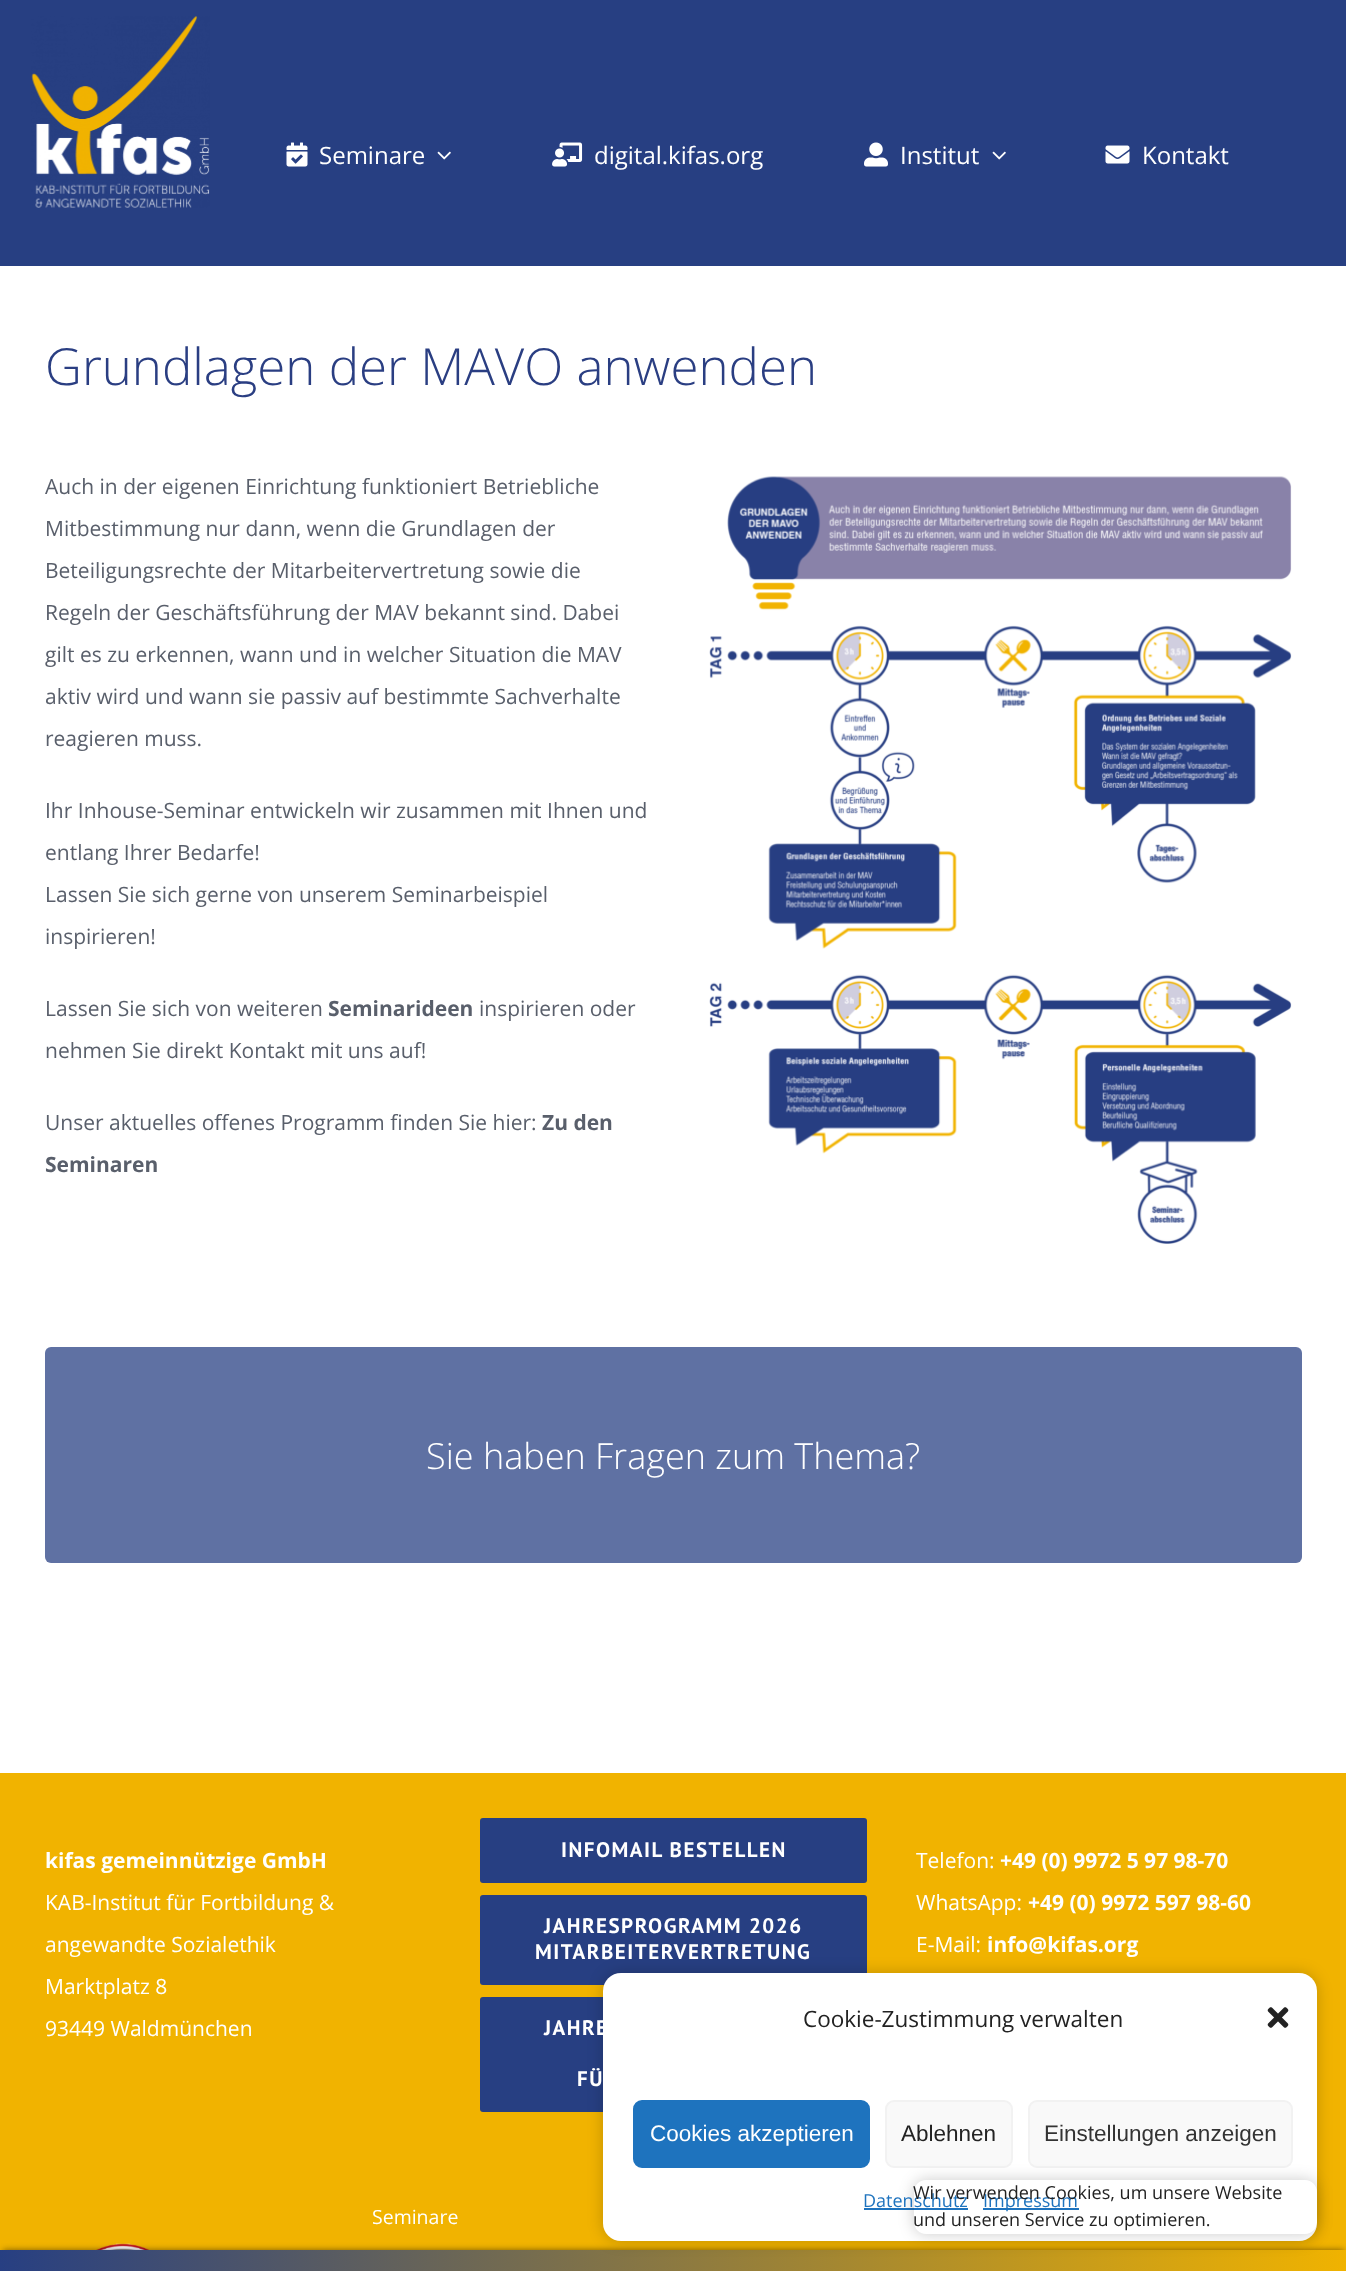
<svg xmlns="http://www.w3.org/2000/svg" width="1346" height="2271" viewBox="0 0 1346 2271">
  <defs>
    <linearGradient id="g1" gradientUnits="userSpaceOnUse" x1="0" y1="2261" x2="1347" y2="2261"><stop offset="0" stop-color="#273f82"/><stop offset="1" stop-color="#f0b300"/></linearGradient>
    <clipPath id="clip1"><path d="M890 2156H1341V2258H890ZM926 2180H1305C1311.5 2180 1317 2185.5 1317 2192V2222C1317 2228.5 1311.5 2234 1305 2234H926C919.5 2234 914 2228.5 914 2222V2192C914 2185.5 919.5 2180 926 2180Z" clip-rule="evenodd"/></clipPath>
  </defs>
  <rect width="100%" height="100%" fill="#fff"/>
  <path d="M0 0h1346v266H0z" fill="#273f82"/>
  <image x="31" y="16" width="179" height="192" href="img/1.png"/>
  <image x="286" y="142" width="22" height="25" href="img/2.png"/>
  <image x="437" y="151" width="14" height="9" href="img/3.png"/>
  <image x="552" y="142" width="31" height="25" href="img/4.png"/>
  <image x="864" y="142" width="24" height="25" href="img/5.png"/>
  <image x="992" y="151" width="14" height="9" href="img/3.png"/>
  <image x="1105" y="145" width="25" height="19" href="img/6.png"/>
  <image x="709" y="476" width="583" height="768" href="img/7.png"/>
  <rect x="45" y="1347" width="1257" height="216" rx="6" fill="#5f71a3"/>
  <path d="M0 1773h1346v477H0z" fill="#f1b300"/>
  <rect x="480" y="1818" width="387" height="65" rx="3" fill="#273f82"/>
  <rect x="480" y="1895" width="387" height="90" rx="3" fill="#273f82"/>
  <rect x="480" y="1997" width="387" height="115" rx="3" fill="#273f82"/>
  <image x="95" y="2243" width="55" height="7" href="img/8.png"/>
  <path d="M3 2250h1341v15H3z" fill="#00000080" filter="blur(3px)"/>
  <path d="M0 2250h1346v21H0z" fill="url(#g1)"/>
  <rect x="603" y="1973" width="714" height="268" rx="18" fill="#00000033" filter="blur(7.5px)"/>
  <rect x="603" y="1973" width="714" height="268" rx="18" fill="#fff"/>
  <image x="1267" y="2007" width="22" height="21" href="img/9.png"/>
  <rect x="634" y="2101" width="235" height="66" rx="8" fill="#1e73be" stroke="#1e73be" stroke-width="2"/>
  <rect x="886" y="2101" width="126" height="66" rx="8" fill="#f9f9f9" stroke="#f2f2f2" stroke-width="2"/>
  <rect x="1029" y="2101" width="263" height="66" rx="8" fill="#f9f9f9" stroke="#f2f2f2" stroke-width="2"/>
  <path d="M864 2208h104v2H864z" fill="#1e73be"/>
  <path d="M983 2208h96v2H983z" fill="#1e73be"/>
  <g clip-path="url(#clip1)">
    <rect x="914" y="2180" width="403" height="54" rx="12" fill="#00000033" filter="blur(7.5px)"/>
  </g>
  <g font-family="Open Sans" font-size="24" fill="#fff">
    <text x="319" y="164">Seminare</text>
    <text x="594" y="164">digital.kifas.org</text>
    <text x="900" y="164">Institut</text>
    <text x="1142" y="164">Kontakt</text>
  </g>
  <text x="45" y="385" font-family="Open Sans" font-size="51" font-weight="300" fill="#2a3e82">Grundlagen der MAVO anwenden</text>
  <g font-family="Open Sans" font-size="21" fill="#595f6b">
    <text x="45" y="494">Auch in der eigenen Einrichtung funktioniert Betriebliche</text>
    <text x="45" y="536">Mitbestimmung nur dann, wenn die Grundlagen der</text>
    <text x="45" y="578">Beteiligungsrechte der Mitarbeitervertretung sowie die</text>
    <text x="45" y="620">Regeln der Geschäftsführung der MAV bekannt sind. Dabei</text>
    <text x="45" y="662">gilt es zu erkennen, wann und in welcher Situation die MAV</text>
    <text x="45" y="704">aktiv wird und wann sie passiv auf bestimmte Sachverhalte</text>
    <text x="45" y="746">reagieren muss.</text>
    <text x="45" y="818">Ihr Inhouse-Seminar entwickeln wir zusammen mit Ihnen und</text>
    <text x="45" y="860">entlang Ihrer Bedarfe!</text>
    <text x="45" y="902">Lassen Sie sich gerne von unserem Seminarbeispiel</text>
    <text x="45" y="944">inspirieren!</text>
    <text x="45" y="1016">Lassen Sie sich von weiteren</text>
  </g>
  <text x="328" y="1016" font-family="Open Sans" font-size="21" font-weight="bold" fill="#595f6b">Seminarideen</text>
  <g font-family="Open Sans" font-size="21" fill="#595f6b">
    <text x="479" y="1016">inspirieren oder</text>
    <text x="45" y="1058">nehmen Sie direkt Kontakt mit uns auf!</text>
    <text x="45" y="1130">Unser aktuelles offenes Programm finden Sie hier:</text>
  </g>
  <g font-family="Open Sans" font-size="21" font-weight="bold" fill="#595f6b">
    <text x="542" y="1130">Zu den</text>
    <text x="45" y="1172">Seminaren</text>
  </g>
  <text x="426" y="1469" font-family="Open Sans" font-size="36" font-weight="300" fill="#fff">Sie haben Fragen zum Thema?</text>
  <text x="45" y="1868" font-family="Open Sans" font-size="21" font-weight="bold" fill="#fff">kifas gemeinnützige GmbH</text>
  <g font-family="Open Sans" font-size="21" fill="#fff">
    <text x="45" y="1910">KAB-Institut für Fortbildung &amp;</text>
    <text x="45" y="1952">angewandte Sozialethik</text>
    <text x="45" y="1994">Marktplatz 8</text>
    <text x="45" y="2036">93449 Waldmünchen</text>
  </g>
  <g font-family="PT Sans" font-size="21" font-weight="bold" letter-spacing="1.5" fill="#fff">
    <text x="561" y="1857">INFOMAIL BESTELLEN</text>
    <text x="544" y="1933">JAHRESPROGRAMM 2026</text>
    <text x="535" y="1959">MITARBEITERVERTRETUNG</text>
    <text x="544" y="2035">JAHRE</text>
    <text x="577" y="2086">FÜ</text>
  </g>
  <text x="916" y="1868" font-family="Open Sans" font-size="21" fill="#fff">Telefon:</text>
  <text x="1000" y="1868" font-family="Open Sans" font-size="21" font-weight="bold" fill="#fff">+49 (0) 9972 5 97 98-70</text>
  <text x="916" y="1910" font-family="Open Sans" font-size="21" fill="#fff">WhatsApp:</text>
  <text x="1028" y="1910" font-family="Open Sans" font-size="21" font-weight="bold" fill="#fff">+49 (0) 9972 597 98-60</text>
  <text x="916" y="1952" font-family="Open Sans" font-size="21" fill="#fff">E-Mail:</text>
  <text x="987" y="1952" font-family="Open Sans" font-size="21" font-weight="bold" fill="#fff">info@kifas.org</text>
  <text x="372" y="2224" font-family="Open Sans" font-size="19.5" fill="#fff">Seminare</text>
  <text x="803" y="2027" font-family="Open Sans" font-size="22.5" fill="#222">Cookie-Zustimmung verwalten</text>
  <text x="650" y="2141" font-family="Liberation Sans" font-size="22.5" fill="#fff">Cookies akzeptieren</text>
  <text x="901" y="2141" font-family="Liberation Sans" font-size="22.5" fill="#222">Ablehnen</text>
  <text x="1044" y="2141" font-family="Liberation Sans" font-size="22.5" fill="#333">Einstellungen anzeigen</text>
  <text x="913" y="2226" font-family="Open Sans" font-size="18" fill="#222">und unseren Service zu optimieren.</text>
  <g font-family="Open Sans" font-size="18" fill="#1e73be">
    <text x="863" y="2207">Datenschutz</text>
    <text x="983" y="2207">Impressum</text>
  </g>
  <text x="913" y="2199" font-family="Open Sans" font-size="18" fill="#222">Wir verwenden Cookies, um unsere Website</text>
</svg>
